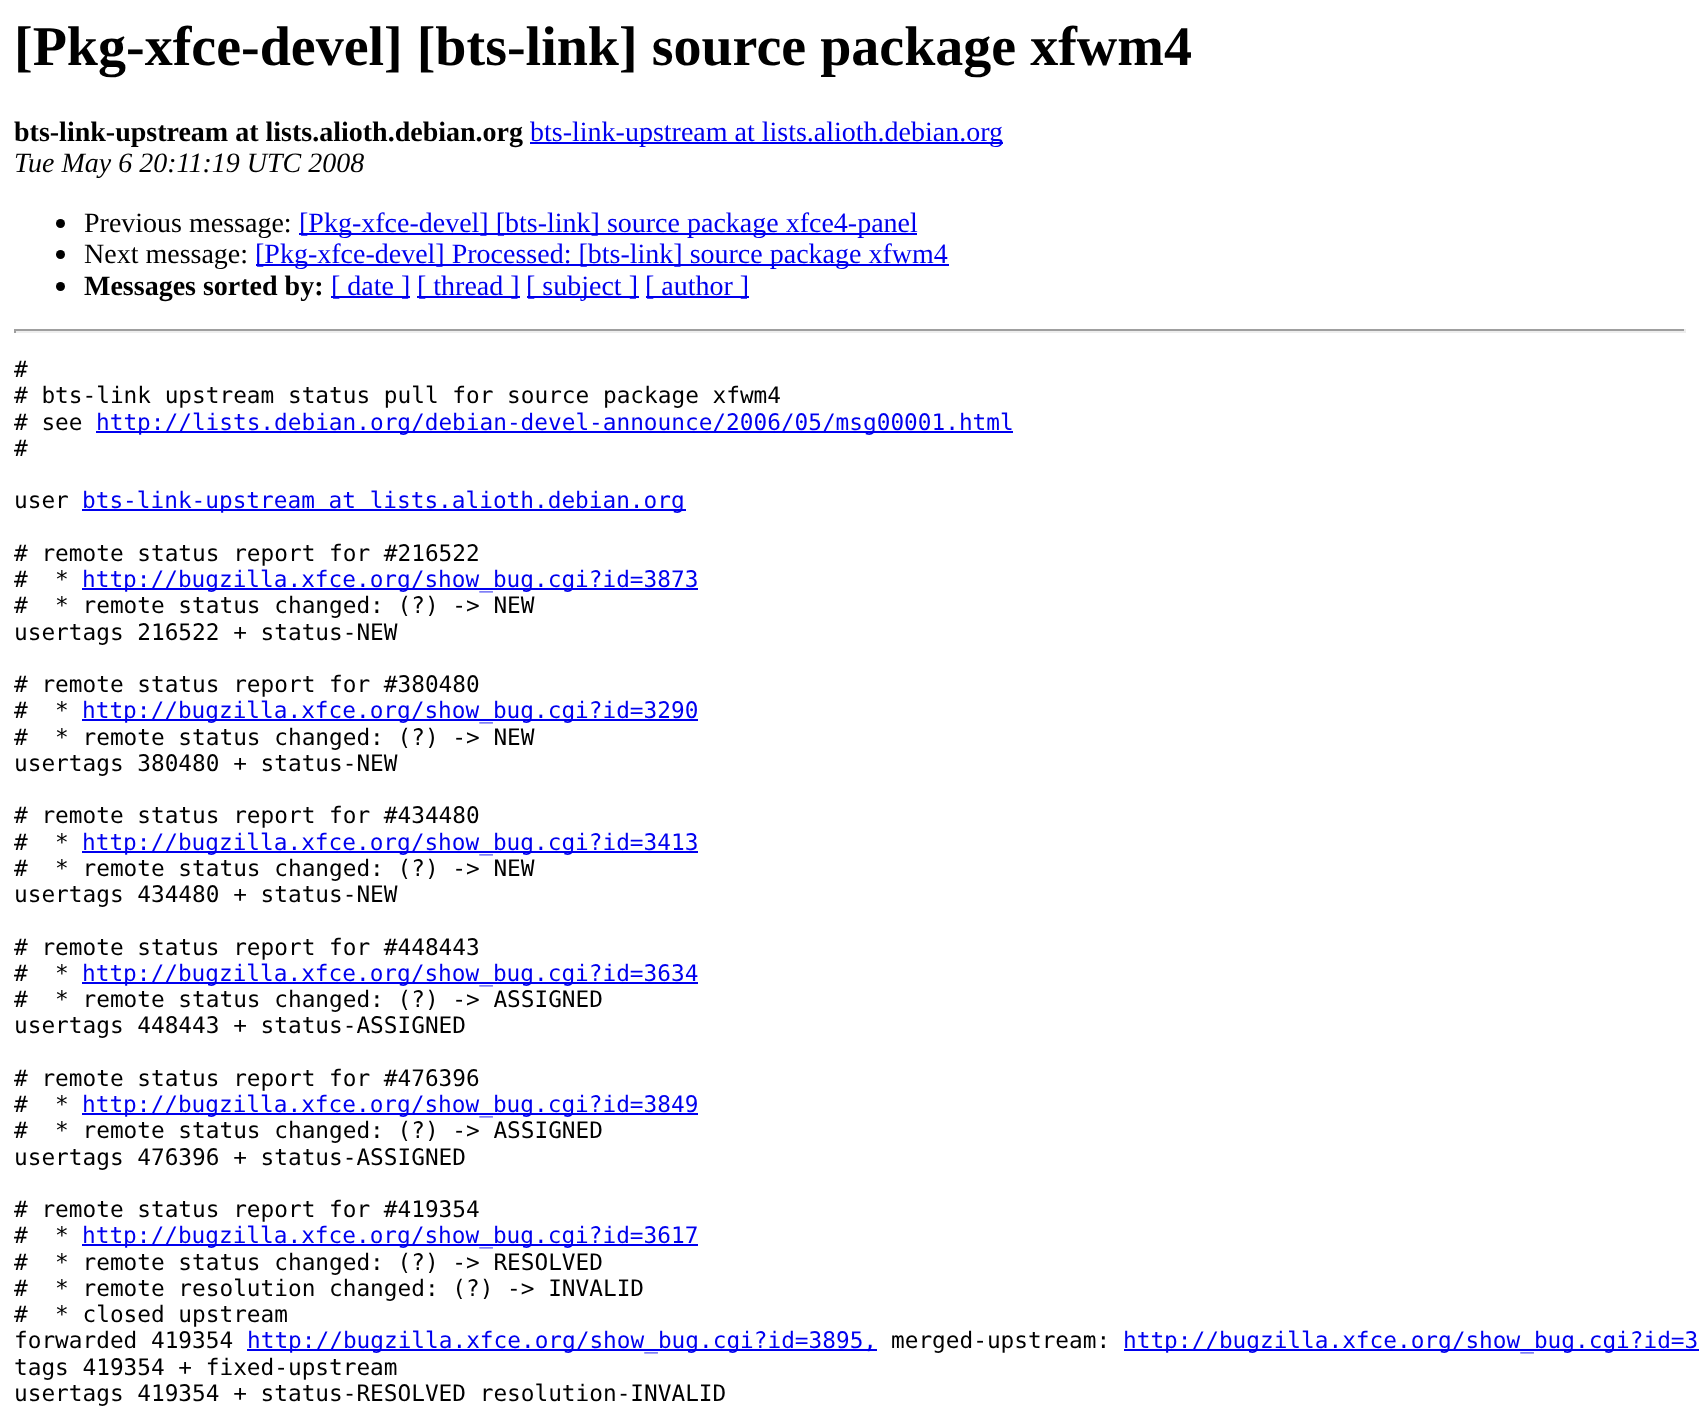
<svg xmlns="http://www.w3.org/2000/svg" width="1699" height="1422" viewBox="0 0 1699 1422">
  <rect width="100%" height="100%" fill="#fff"/>
  <path d="M530 142h473v2H530z" fill="#00e"/>
  <circle cx="60.5" cy="223.5" r="4.5" fill="#000"/>
  <path d="M299 233h618v2H299z" fill="#00e"/>
  <circle cx="60.5" cy="254.5" r="4.5" fill="#000"/>
  <path d="M256 264h693v2H256z" fill="#00e"/>
  <circle cx="60.5" cy="286.5" r="4.5" fill="#000"/>
  <path d="M331 296h79v2H331z" fill="#00e"/>
  <path d="M417 296h103v2H417z" fill="#00e"/>
  <path d="M527 296h112v2H527z" fill="#00e"/>
  <path d="M646 296h103v2H646z" fill="#00e"/>
  <path d="M14 329h1671v2H14z" fill="#9f9f9f"/>
  <path d="M1684 329h2v4H1684z" fill="#eee"/>
  <path d="M14 331h1671v2H14z" fill="#eee"/>
  <path d="M14 329h2v4H14z" fill="#9f9f9f"/>
  <path d="M96 431h917v2H96z" fill="#00e"/>
  <path d="M82 509h604v2H82z" fill="#00e"/>
  <path d="M82 588h616v2H82z" fill="#00e"/>
  <path d="M82 719h616v2H82z" fill="#00e"/>
  <path d="M82 851h616v2H82z" fill="#00e"/>
  <path d="M82 982h616v2H82z" fill="#00e"/>
  <path d="M82 1113h616v2H82z" fill="#00e"/>
  <path d="M82 1244h616v2H82z" fill="#00e"/>
  <path d="M247 1349h630v2H247z" fill="#00e"/>
  <path d="M1124 1349h575v2H1124z" fill="#00e"/>
  <text x="14" y="65" font-family="Liberation Serif" font-size="56" font-weight="bold" fill="#000">[Pkg-xfce-devel] [bts-link] source package xfwm4</text>
  <text x="14" y="141" font-family="Liberation Serif" font-size="28" font-weight="bold" fill="#000">bts-link-upstream at lists.alioth.debian.org</text>
  <text x="530" y="141" font-family="Liberation Serif" font-size="28" fill="#00e">bts-link-upstream at lists.alioth.debian.org</text>
  <text x="14" y="172" font-family="Liberation Serif" font-size="28" font-style="italic" fill="#000">Tue May 6 20:11:19 UTC 2008</text>
  <text x="84" y="232" font-family="Liberation Serif" font-size="28" fill="#000">Previous message:</text>
  <text x="299" y="232" font-family="Liberation Serif" font-size="28" fill="#00e">[Pkg-xfce-devel] [bts-link] source package xfce4-panel</text>
  <text x="84" y="263" font-family="Liberation Serif" font-size="28" fill="#000">Next message:</text>
  <text x="255" y="263" font-family="Liberation Serif" font-size="28" fill="#00e">[Pkg-xfce-devel] Processed: [bts-link] source package xfwm4</text>
  <text x="84" y="295" font-family="Liberation Serif" font-size="28" font-weight="bold" fill="#000">Messages sorted by:</text>
  <g font-family="Liberation Serif" font-size="28" fill="#00e">
    <text x="331" y="295">[ date ]</text>
    <text x="417" y="295">[ thread ]</text>
    <text x="526" y="295">[ subject ]</text>
    <text x="645" y="295">[ author ]</text>
  </g>
  <g font-family="DejaVu Sans Mono" font-size="22.75" fill="#000">
    <text x="14" y="377">#</text>
    <text x="14" y="403"># bts-link upstream status pull for source package xfwm4</text>
    <text x="14" y="430"># see</text>
  </g>
  <text x="96" y="430" font-family="DejaVu Sans Mono" font-size="22.75" fill="#00e">http://lists.debian.org/debian-devel-announce/2006/05/msg00001.html</text>
  <g font-family="DejaVu Sans Mono" font-size="22.75" fill="#000">
    <text x="14" y="456">#</text>
    <text x="14" y="508">user</text>
  </g>
  <text x="82" y="508" font-family="DejaVu Sans Mono" font-size="22.75" fill="#00e">bts-link-upstream at lists.alioth.debian.org</text>
  <g font-family="DejaVu Sans Mono" font-size="22.75" fill="#000">
    <text x="14" y="561"># remote status report for #216522</text>
    <text x="14" y="587" xml:space="preserve">#  *</text>
  </g>
  <text x="82" y="587" font-family="DejaVu Sans Mono" font-size="22.75" fill="#00e">http://bugzilla.xfce.org/show_bug.cgi?id=3873</text>
  <g font-family="DejaVu Sans Mono" font-size="22.75" fill="#000">
    <text x="14" y="613" xml:space="preserve">#  * remote status changed: (?) -&gt; NEW</text>
    <text x="14" y="640">usertags 216522 + status-NEW</text>
    <text x="14" y="692"># remote status report for #380480</text>
    <text x="14" y="718" xml:space="preserve">#  *</text>
  </g>
  <text x="82" y="718" font-family="DejaVu Sans Mono" font-size="22.75" fill="#00e">http://bugzilla.xfce.org/show_bug.cgi?id=3290</text>
  <g font-family="DejaVu Sans Mono" font-size="22.75" fill="#000">
    <text x="14" y="745" xml:space="preserve">#  * remote status changed: (?) -&gt; NEW</text>
    <text x="14" y="771">usertags 380480 + status-NEW</text>
    <text x="14" y="823"># remote status report for #434480</text>
    <text x="14" y="850" xml:space="preserve">#  *</text>
  </g>
  <text x="82" y="850" font-family="DejaVu Sans Mono" font-size="22.75" fill="#00e">http://bugzilla.xfce.org/show_bug.cgi?id=3413</text>
  <g font-family="DejaVu Sans Mono" font-size="22.75" fill="#000">
    <text x="14" y="876" xml:space="preserve">#  * remote status changed: (?) -&gt; NEW</text>
    <text x="14" y="902">usertags 434480 + status-NEW</text>
    <text x="14" y="955"># remote status report for #448443</text>
    <text x="14" y="981" xml:space="preserve">#  *</text>
  </g>
  <text x="82" y="981" font-family="DejaVu Sans Mono" font-size="22.75" fill="#00e">http://bugzilla.xfce.org/show_bug.cgi?id=3634</text>
  <g font-family="DejaVu Sans Mono" font-size="22.75" fill="#000">
    <text x="14" y="1007" xml:space="preserve">#  * remote status changed: (?) -&gt; ASSIGNED</text>
    <text x="14" y="1033">usertags 448443 + status-ASSIGNED</text>
    <text x="14" y="1086"># remote status report for #476396</text>
    <text x="14" y="1112" xml:space="preserve">#  *</text>
  </g>
  <text x="82" y="1112" font-family="DejaVu Sans Mono" font-size="22.75" fill="#00e">http://bugzilla.xfce.org/show_bug.cgi?id=3849</text>
  <g font-family="DejaVu Sans Mono" font-size="22.75" fill="#000">
    <text x="14" y="1138" xml:space="preserve">#  * remote status changed: (?) -&gt; ASSIGNED</text>
    <text x="14" y="1165">usertags 476396 + status-ASSIGNED</text>
    <text x="14" y="1217"># remote status report for #419354</text>
    <text x="14" y="1243" xml:space="preserve">#  *</text>
  </g>
  <text x="82" y="1243" font-family="DejaVu Sans Mono" font-size="22.75" fill="#00e">http://bugzilla.xfce.org/show_bug.cgi?id=3617</text>
  <g font-family="DejaVu Sans Mono" font-size="22.75" fill="#000">
    <text x="14" y="1270" xml:space="preserve">#  * remote status changed: (?) -&gt; RESOLVED</text>
    <text x="14" y="1296" xml:space="preserve">#  * remote resolution changed: (?) -&gt; INVALID</text>
    <text x="14" y="1322" xml:space="preserve">#  * closed upstream</text>
    <text x="14" y="1348">forwarded 419354</text>
  </g>
  <text x="247" y="1348" font-family="DejaVu Sans Mono" font-size="22.75" fill="#00e">http://bugzilla.xfce.org/show_bug.cgi?id=3895,</text>
  <text x="891" y="1348" font-family="DejaVu Sans Mono" font-size="22.75" fill="#000">merged-upstream:</text>
  <text x="1123" y="1348" font-family="DejaVu Sans Mono" font-size="22.75" fill="#00e">http://bugzilla.xfce.org/show_bug.cgi?id=3</text>
  <g font-family="DejaVu Sans Mono" font-size="22.75" fill="#000">
    <text x="14" y="1375">tags 419354 + fixed-upstream</text>
    <text x="14" y="1401">usertags 419354 + status-RESOLVED resolution-INVALID</text>
  </g>
</svg>
